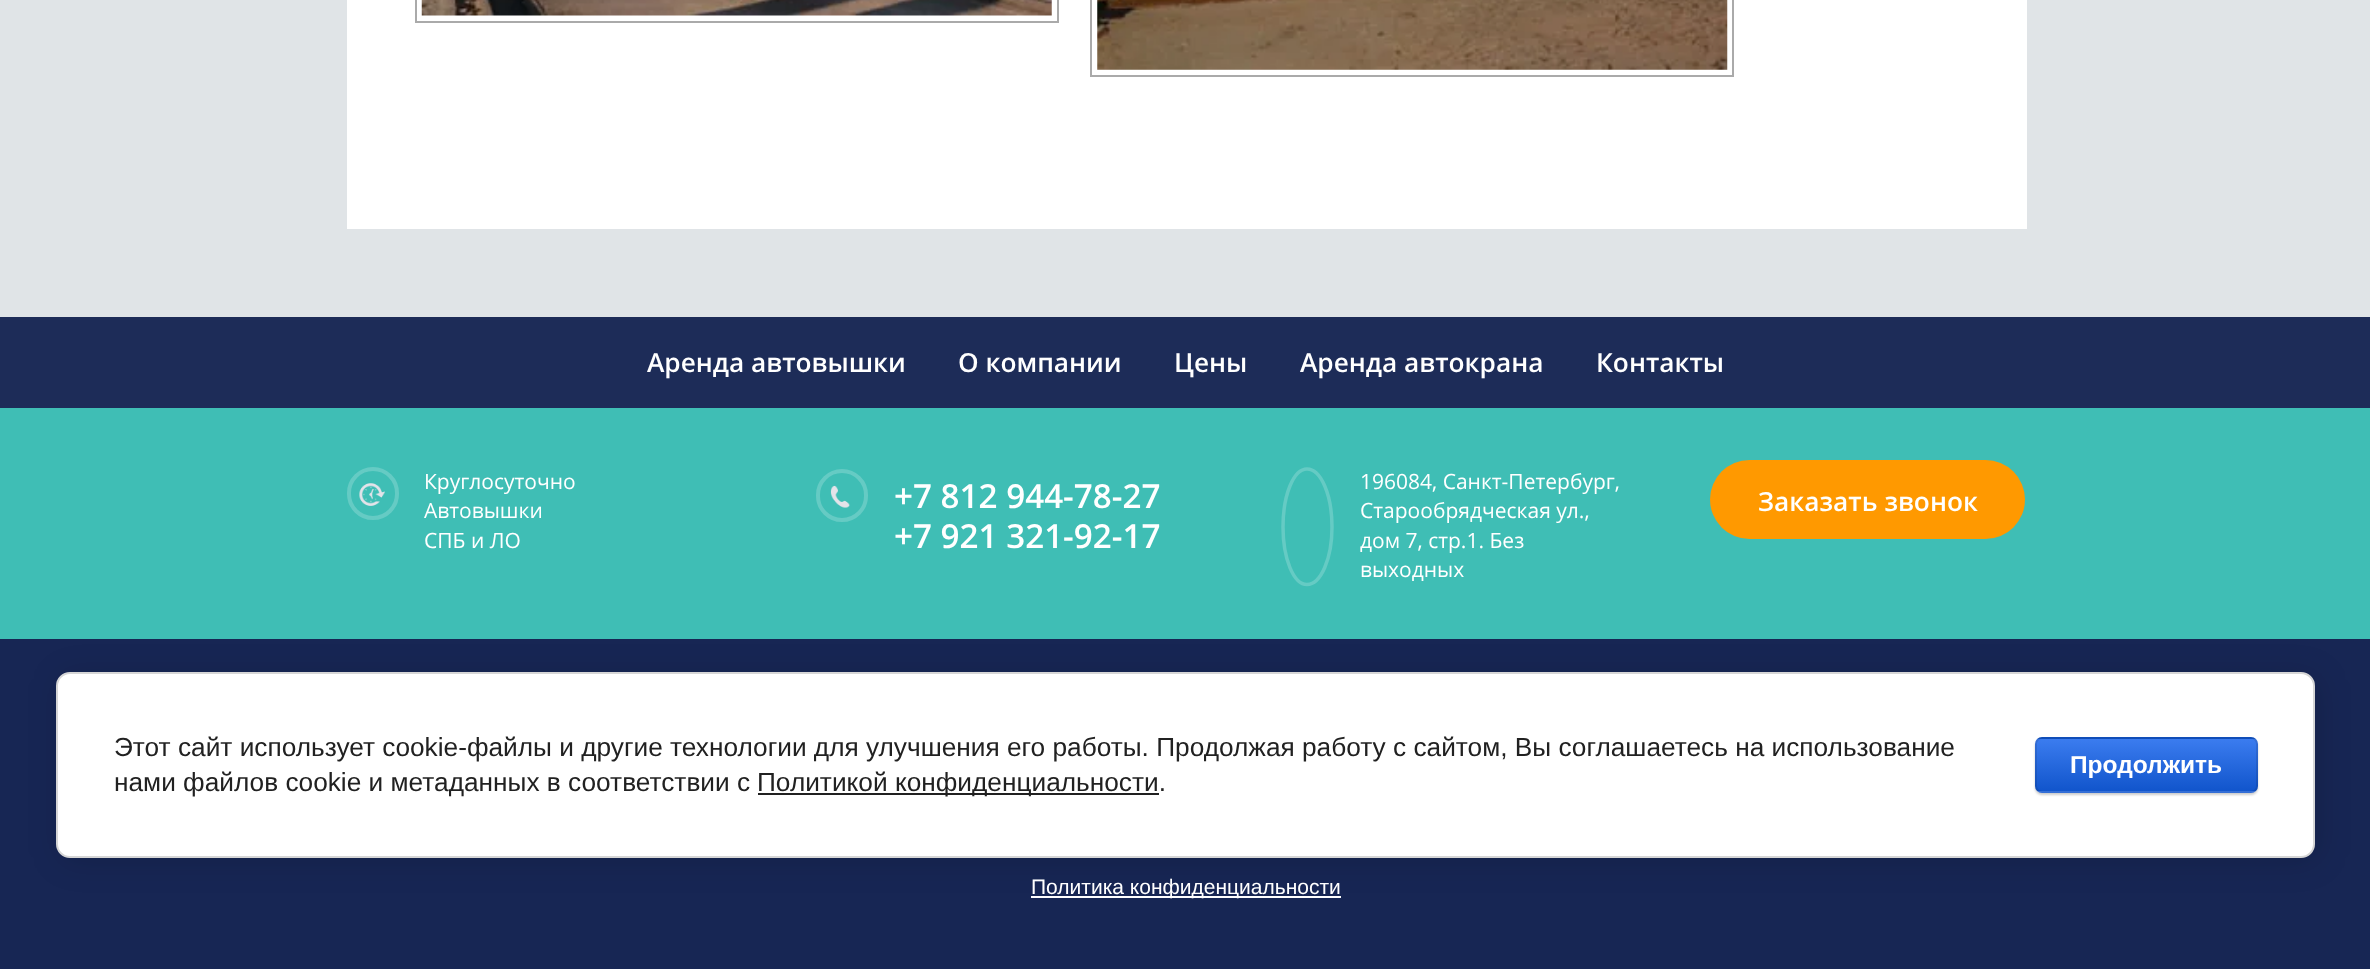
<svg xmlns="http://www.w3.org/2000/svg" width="2370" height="969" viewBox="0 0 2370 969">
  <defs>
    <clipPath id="clip1"><rect x="2035" y="737" width="223" height="56" rx="7"/></clipPath>
    <linearGradient id="g1" gradientUnits="userSpaceOnUse" x1="2146" y1="686" x2="2146" y2="739"><stop offset="0" stop-color="#3b7cef"/><stop offset="1" stop-color="#15c"/></linearGradient>
    <linearGradient id="g2" gradientUnits="userSpaceOnUse" x1="2146" y1="739" x2="2146" y2="791"><stop offset="0" stop-color="#3b7cef"/><stop offset="1" stop-color="#15c"/></linearGradient>
    <linearGradient id="g3" gradientUnits="userSpaceOnUse" x1="2146" y1="791" x2="2146" y2="844"><stop offset="0" stop-color="#3b7cef"/><stop offset="1" stop-color="#15c"/></linearGradient>
  </defs>
  <rect width="100%" height="100%" fill="#e0e4e7"/>
  <path d="M347 0h1680v229H347z" fill="#fff"/>
  <path d="M416 -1h642v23H416z" fill="none" stroke="#aaa" stroke-width="2"/>
  <image x="421" y="0" width="631" height="16" href="img/1.png"/>
  <path d="M1091 -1h642v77H1091z" fill="none" stroke="#aaa" stroke-width="2"/>
  <image x="1097" y="0" width="631" height="70" href="img/2.png"/>
  <path d="M0 317h2370v91H0z" fill="#1d2c58"/>
  <path d="M0 408h2370v231H0z" fill="#3fbeb5"/>
  <image x="359" y="483" width="26" height="23" href="img/3.png"/>
  <rect x="349" y="469" width="48" height="49" rx="24" fill="none" stroke="#65cbc4" stroke-width="4"/>
  <image x="830" y="485" width="20" height="23" href="img/4.png"/>
  <rect x="818" y="471" width="48" height="49" rx="24" fill="none" stroke="#65cbc4" stroke-width="4"/>
  <path d="M1307 469C1321 469 1332 495 1332 527C1332 558.5 1321 584.5 1307 584.5C1293.5 584.5 1283 558.5 1283 527C1283 495 1293.5 469 1307 469Z" fill="none" stroke="#65cbc4" stroke-width="3.5"/>
  <rect x="1710" y="460" width="315" height="79" rx="39.5" fill="#f90"/>
  <path d="M0 639h2370v330H0z" fill="#172654"/>
  <path d="M1031 896h310v2H1031z" fill="#fff"/>
  <rect x="60" y="676" width="2259" height="185" rx="14" fill="#00000024" filter="blur(16px)"/>
  <rect x="57" y="673" width="2257" height="184" rx="13" fill="#fff" stroke="#d6d6d6" stroke-width="2"/>
  <path d="M758 793h401v2H758z" fill="#212121"/>
  <rect x="2035" y="739" width="223" height="56" rx="7" fill="#00000033" filter="blur(1px)"/>
  <g clip-path="url(#clip1)">
    <path d="M2035 737h223v2H2035z" fill="url(#g1)"/>
    <path d="M2035 739h223v52H2035z" fill="url(#g2)"/>
    <path d="M2035 791h223v2H2035z" fill="url(#g3)"/>
  </g>
  <rect x="2036" y="738" width="221" height="54" rx="6" fill="none" stroke="#0000001a" stroke-width="2"/>
  <g font-family="Open Sans" font-size="26.25" font-weight="600" fill="#fff">
    <text x="647" y="372">Аренда автовышки</text>
    <text x="958" y="372">О компании</text>
    <text x="1174" y="372">Цены</text>
    <text x="1300" y="372">Аренда автокрана</text>
    <text x="1596" y="372">Контакты</text>
  </g>
  <g font-family="Open Sans" font-size="21" fill="#fff">
    <text x="424" y="489">Круглосуточно</text>
    <text x="424" y="518">Автовышки</text>
    <text x="424" y="548">СПБ и ЛО</text>
  </g>
  <g font-family="Open Sans" font-size="33.25" font-weight="600" fill="#fff">
    <text x="894" y="508">+7 812 944-78-27</text>
    <text x="894" y="548">+7 921 321-92-17</text>
  </g>
  <g font-family="Open Sans" font-size="21" fill="#fff">
    <text x="1360" y="489">196084, Санкт-Петербург,</text>
    <text x="1360" y="518">Старообрядческая ул.,</text>
    <text x="1360" y="548">дом 7, стр.1. Без</text>
    <text x="1360" y="577">выходных</text>
  </g>
  <text x="1758" y="511" font-family="Open Sans" font-size="26.25" font-weight="600" fill="#fff">Заказать звонок</text>
  <text x="1031" y="894" font-family="Liberation Sans" font-size="21" fill="#fff">Политика конфиденциальности</text>
  <g font-family="Liberation Sans" font-size="26.25" fill="#212121">
    <text x="114" y="756">Этот сайт использует cookie-файлы и другие технологии для улучшения его работы. Продолжая работу с сайтом, Вы соглашаетесь на использование</text>
    <text x="114" y="791">нами файлов cookie и метаданных в соответствии с</text>
    <text x="757" y="791">Политикой конфиденциальности.</text>
  </g>
  <text x="2070" y="773" font-family="Liberation Sans" font-size="24.5" font-weight="bold" fill="#fff">Продолжить</text>
</svg>
